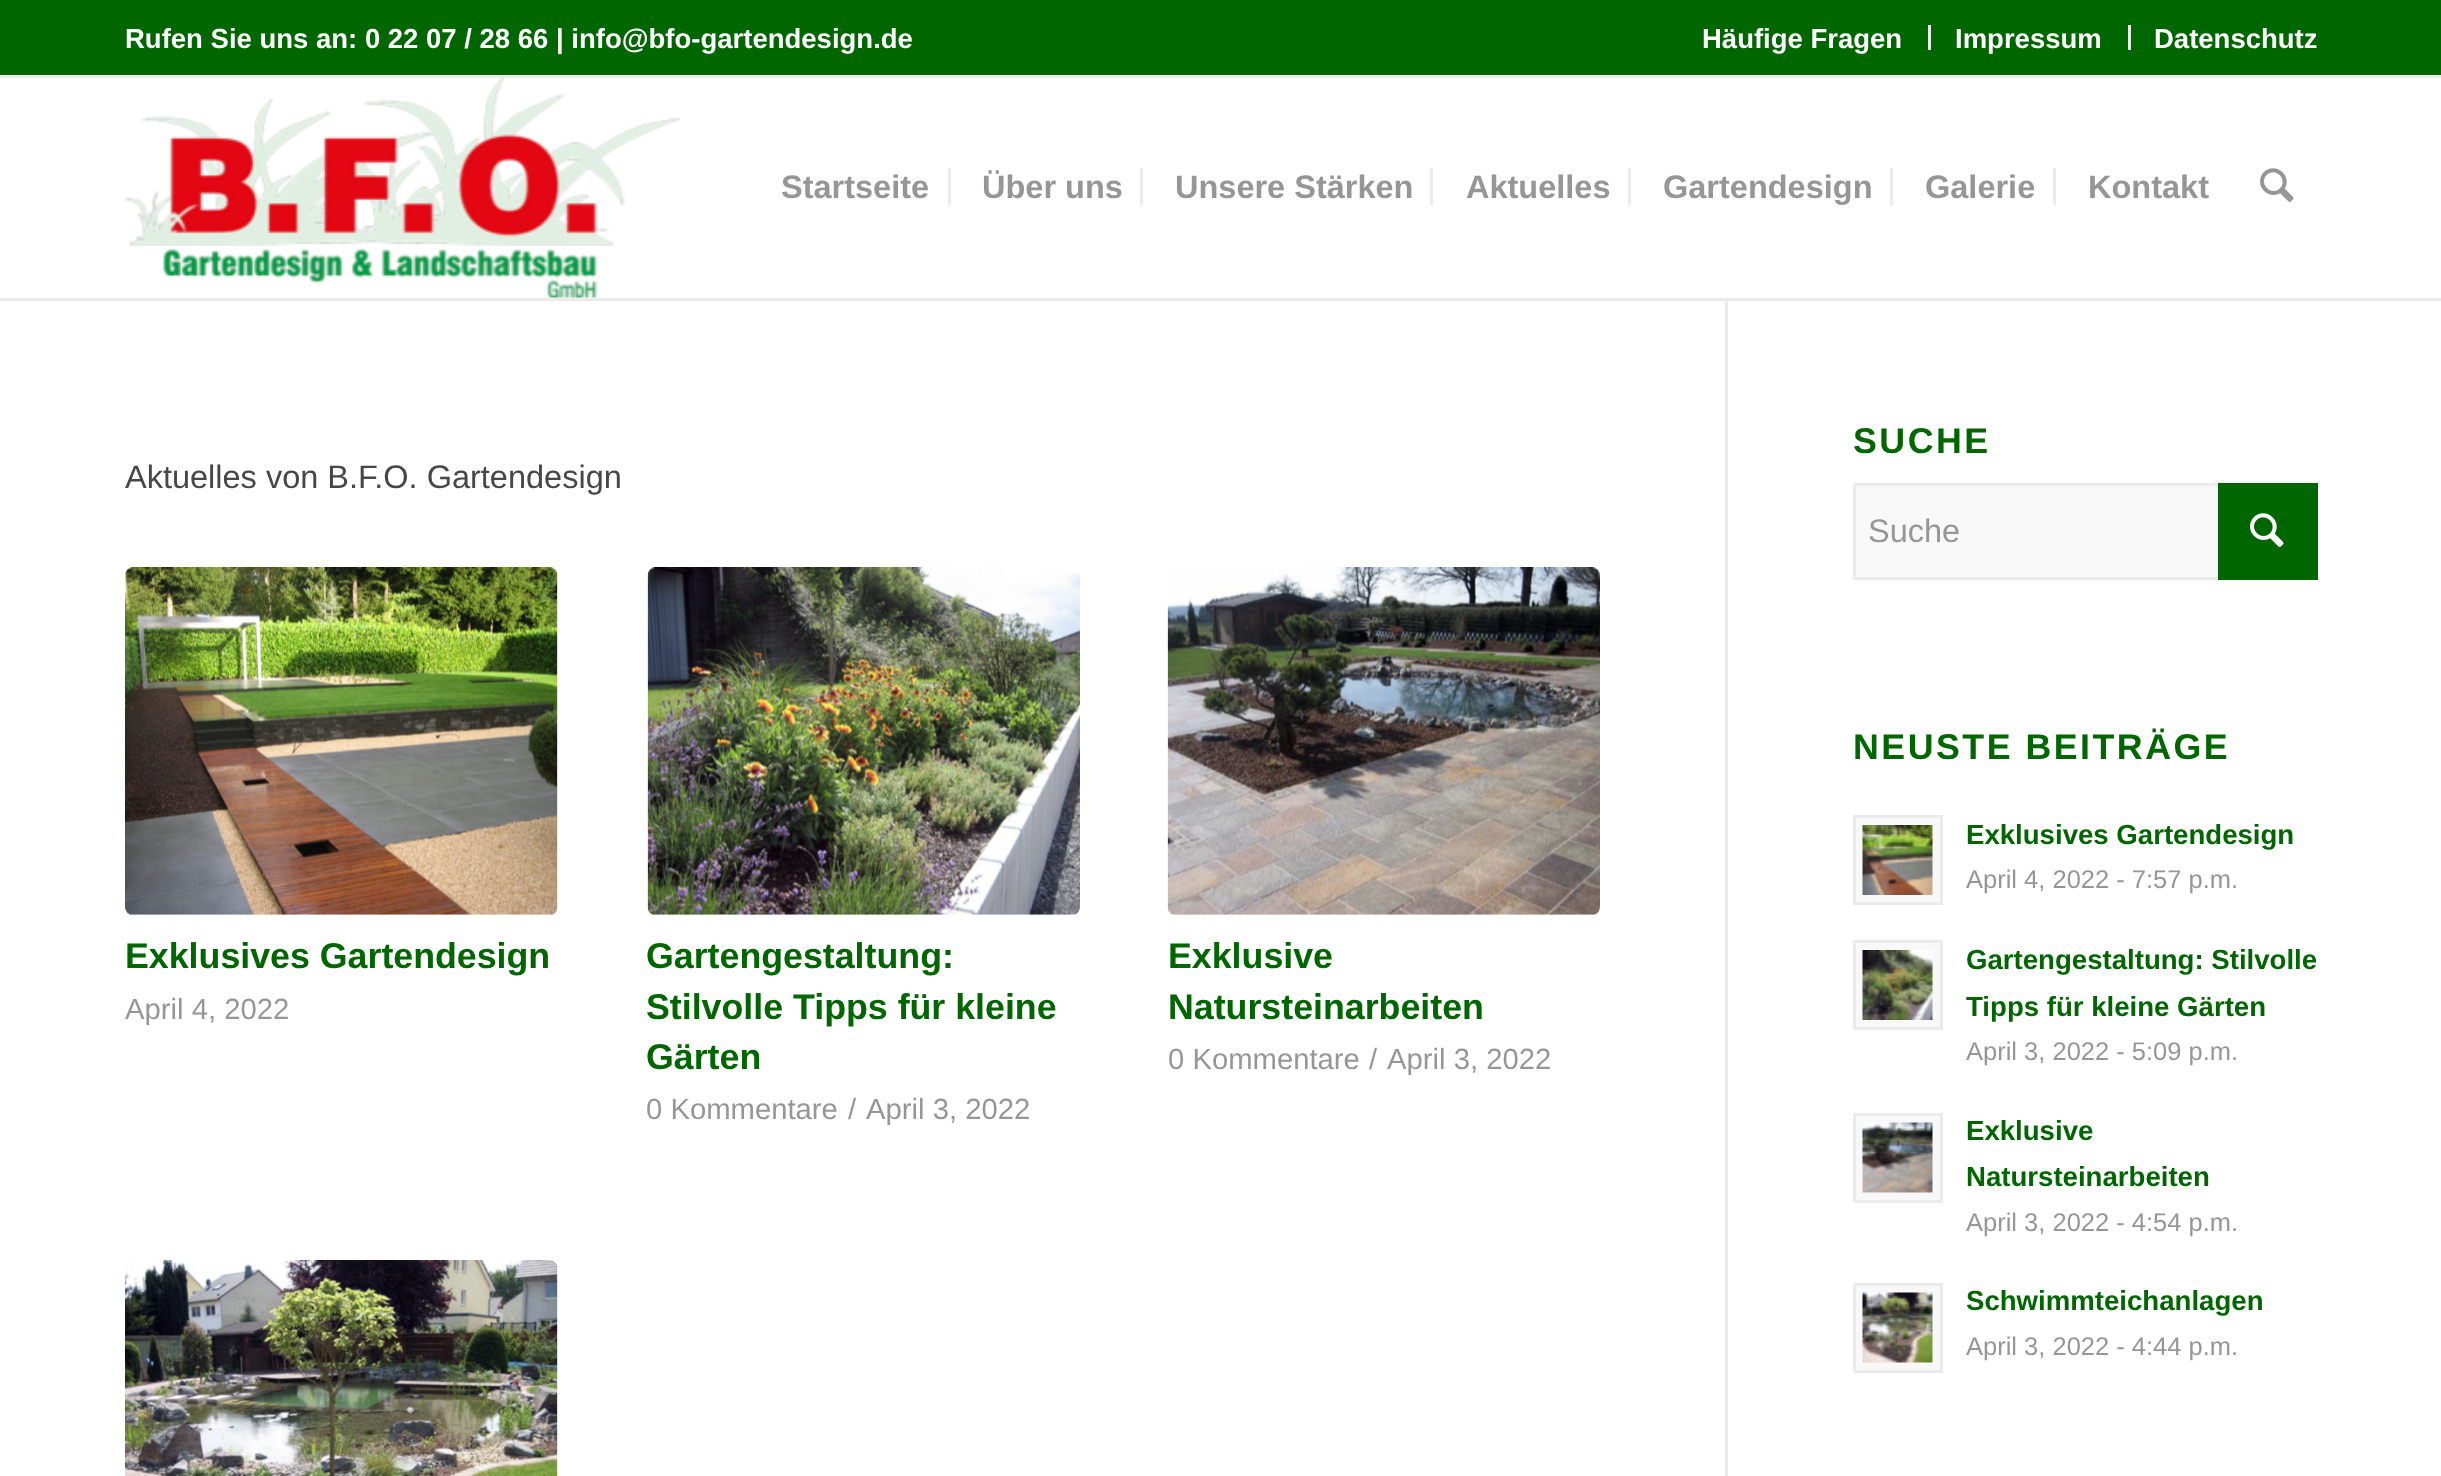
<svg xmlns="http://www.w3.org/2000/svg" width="2441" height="1476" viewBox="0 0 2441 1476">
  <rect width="100%" height="100%" fill="#fff"/>
  <path d="M0 0h2441v75H0z" fill="#060"/>
  <path d="M0 75h2441v3H0z" fill="#ebebeb"/>
  <path d="M1928 25h3v25H1928z" fill="#ebebeb"/>
  <path d="M2128 25h3v25H2128z" fill="#ebebeb"/>
  <path d="M1725 298h3v1178H1725z" fill="#ebebeb"/>
  <path d="M0 298h2441v3H0z" fill="#ebebeb"/>
  <image x="125" y="78" width="555" height="220" href="img/1.png"/>
  <path d="M948 168h3v37H948z" fill="#ebebeb"/>
  <path d="M1140 168h3v37H1140z" fill="#ebebeb"/>
  <path d="M1430 168h3v37H1430z" fill="#ebebeb"/>
  <path d="M1628 168h3v37H1628z" fill="#ebebeb"/>
  <path d="M1890 168h3v37H1890z" fill="#ebebeb"/>
  <path d="M2053 168h3v37H2053z" fill="#ebebeb"/>
  <image x="2260" y="168" width="34" height="34" href="img/2.png"/>
  <rect x="125" y="568" width="433" height="347" rx="8" fill="#f8f8f8"/>
  <image x="125" y="567" width="433" height="348" href="img/3.png"/>
  <rect x="648" y="568" width="432" height="347" rx="8" fill="#f8f8f8"/>
  <image x="647" y="567" width="433" height="348" href="img/4.png"/>
  <rect x="1168" y="568" width="432" height="347" rx="8" fill="#f8f8f8"/>
  <image x="1167" y="567" width="433" height="348" href="img/5.png"/>
  <rect x="125" y="1260" width="433" height="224" rx="8" fill="#f8f8f8"/>
  <image x="125" y="1260" width="433" height="216" href="img/6.png"/>
  <path d="M1856 486h362v91H1856z" fill="#f8f8f8"/>
  <path d="M1854.5 484.5h462v94H1854.5z" fill="none" stroke="#ebebeb" stroke-width="3"/>
  <path d="M2218 483h100v97H2218z" fill="#060"/>
  <image x="2250" y="513" width="34" height="34" href="img/7.png"/>
  <path d="M1854.5 816.5h87v87H1854.5z" fill="#f8f8f8" stroke="#ebebeb" stroke-width="3"/>
  <image x="1862" y="825" width="71" height="70" href="img/8.png"/>
  <path d="M1854.5 941.5h87v87H1854.5z" fill="#f8f8f8" stroke="#ebebeb" stroke-width="3"/>
  <image x="1862" y="950" width="71" height="70" href="img/9.png"/>
  <path d="M1854.5 1114.5h87v87H1854.5z" fill="#f8f8f8" stroke="#ebebeb" stroke-width="3"/>
  <image x="1862" y="1122" width="71" height="71" href="img/10.png"/>
  <path d="M1854.5 1284.5h87v87H1854.5z" fill="#f8f8f8" stroke="#ebebeb" stroke-width="3"/>
  <image x="1862" y="1292" width="71" height="71" href="img/11.png"/>
  <g font-family="Liberation Sans" font-size="27.5" font-weight="bold" fill="#fff">
    <text x="125" y="48">Rufen Sie uns an: 0 22 07 / 28 66 | info@bfo-gartendesign.de</text>
    <text x="1702" y="48">Häufige Fragen</text>
    <text x="1955" y="48">Impressum</text>
    <text x="2154" y="48">Datenschutz</text>
  </g>
  <g font-family="Liberation Sans" font-size="32.5" font-weight="bold" fill="#969696">
    <text x="781" y="198">Startseite</text>
    <text x="982" y="198">Über uns</text>
    <text x="1175" y="198">Unsere Stärken</text>
    <text x="1466" y="198">Aktuelles</text>
    <text x="1663" y="198">Gartendesign</text>
    <text x="1925" y="198">Galerie</text>
    <text x="2088" y="198">Kontakt</text>
  </g>
  <text x="125" y="488" font-family="Liberation Sans" font-size="32.5" fill="#474747">Aktuelles von B.F.O. Gartendesign</text>
  <text x="125" y="968" font-family="Liberation Sans" font-size="35.75" font-weight="bold" fill="#060">Exklusives Gartendesign</text>
  <text x="125" y="1019" font-family="Liberation Sans" font-size="29.25" fill="#969696">April 4, 2022</text>
  <g font-family="Liberation Sans" font-size="35.75" font-weight="bold" fill="#060">
    <text x="646" y="968">Gartengestaltung:</text>
    <text x="646" y="1019">Stilvolle Tipps für kleine</text>
    <text x="646" y="1069">Gärten</text>
  </g>
  <g font-family="Liberation Sans" font-size="29.25" fill="#969696">
    <text x="646" y="1119">0 Kommentare</text>
    <text x="848" y="1119">/</text>
    <text x="866" y="1119">April 3, 2022</text>
  </g>
  <g font-family="Liberation Sans" font-size="35.75" font-weight="bold" fill="#060">
    <text x="1168" y="968">Exklusive</text>
    <text x="1168" y="1019">Natursteinarbeiten</text>
  </g>
  <g font-family="Liberation Sans" font-size="29.25" fill="#969696">
    <text x="1168" y="1069">0 Kommentare</text>
    <text x="1369" y="1069">/</text>
    <text x="1387" y="1069">April 3, 2022</text>
  </g>
  <text x="1853" y="453" font-family="Liberation Sans" font-size="35.75" font-weight="bold" letter-spacing="2.5" fill="#060">SUCHE</text>
  <text x="1868" y="542" font-family="Liberation Sans" font-size="32.5" fill="#969696">Suche</text>
  <text x="1853" y="759" font-family="Liberation Sans" font-size="35.75" font-weight="bold" letter-spacing="2.5" fill="#060">NEUSTE BEITRÄGE</text>
  <text x="1966" y="844" font-family="Liberation Sans" font-size="27.6" font-weight="bold" fill="#060">Exklusives Gartendesign</text>
  <text x="1966" y="888" font-family="Liberation Sans" font-size="25.5" fill="#969696">April 4, 2022 - 7:57 p.m.</text>
  <g font-family="Liberation Sans" font-size="27.6" font-weight="bold" fill="#060">
    <text x="1966" y="969">Gartengestaltung: Stilvolle</text>
    <text x="1966" y="1016">Tipps für kleine Gärten</text>
  </g>
  <text x="1966" y="1060" font-family="Liberation Sans" font-size="25.5" fill="#969696">April 3, 2022 - 5:09 p.m.</text>
  <g font-family="Liberation Sans" font-size="27.6" font-weight="bold" fill="#060">
    <text x="1966" y="1140">Exklusive</text>
    <text x="1966" y="1186">Natursteinarbeiten</text>
  </g>
  <text x="1966" y="1231" font-family="Liberation Sans" font-size="25.5" fill="#969696">April 3, 2022 - 4:54 p.m.</text>
  <text x="1966" y="1310" font-family="Liberation Sans" font-size="27.6" font-weight="bold" fill="#060">Schwimmteichanlagen</text>
  <text x="1966" y="1355" font-family="Liberation Sans" font-size="25.5" fill="#969696">April 3, 2022 - 4:44 p.m.</text>
</svg>
